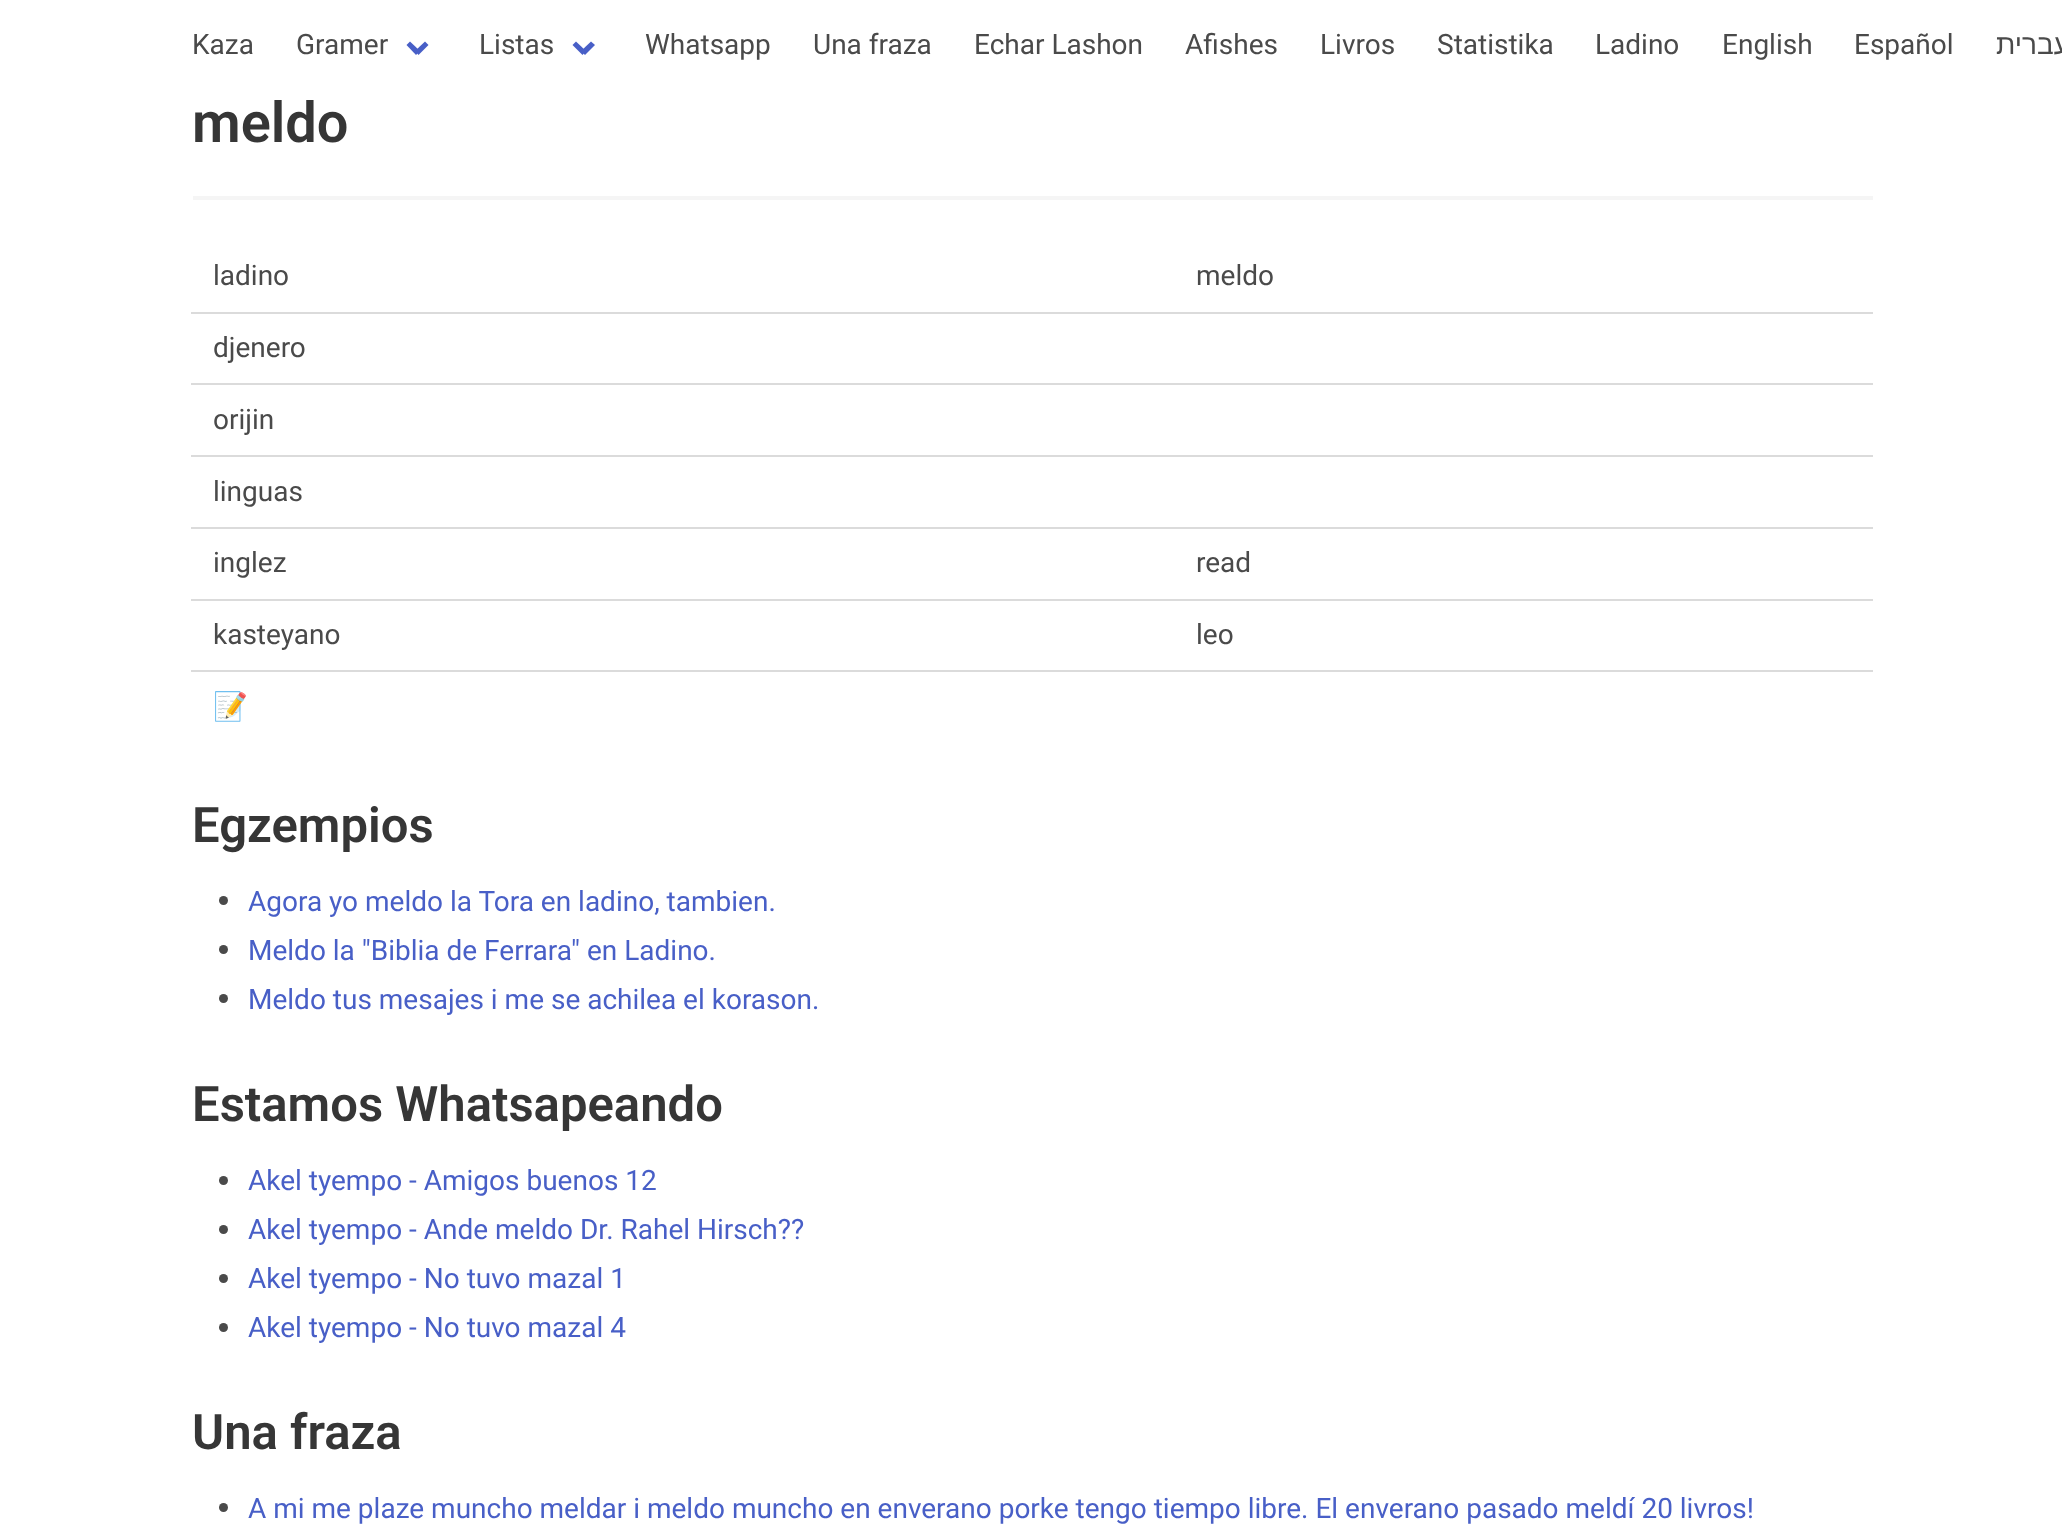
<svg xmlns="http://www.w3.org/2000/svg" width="2062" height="1532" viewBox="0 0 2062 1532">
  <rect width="100%" height="100%" fill="#fff"/>
  <path d="M415 51L425 41.5L428.5 45L418.5 55Z" fill="#485fc7"/>
  <path d="M406.5 45L410 41.5L420 51L416 55Z" fill="#485fc7"/>
  <path d="M581 51L591 41.5L595 45L585 55Z" fill="#485fc7"/>
  <path d="M572.5 45L576 41.5L586 51L582.5 55Z" fill="#485fc7"/>
  <path d="M193 196h1680v4H193z" fill="#f5f5f5"/>
  <path d="M191 312h1682v2H191z" fill="#dbdbdb"/>
  <path d="M191 383h1682v2H191z" fill="#dbdbdb"/>
  <path d="M191 455h1682v2H191z" fill="#dbdbdb"/>
  <path d="M191 527h1682v2H191z" fill="#dbdbdb"/>
  <path d="M191 599h1682v2H191z" fill="#dbdbdb"/>
  <path d="M191 670h1682v2H191z" fill="#dbdbdb"/>
  <circle cx="223.5" cy="900.5" r="4.5" fill="#4a4a4a"/>
  <circle cx="223.5" cy="949.5" r="4.5" fill="#4a4a4a"/>
  <circle cx="223.5" cy="998.5" r="4.5" fill="#4a4a4a"/>
  <circle cx="223.5" cy="1180.5" r="4.5" fill="#4a4a4a"/>
  <circle cx="223.5" cy="1229.5" r="4.5" fill="#4a4a4a"/>
  <circle cx="223.5" cy="1278.5" r="4.5" fill="#4a4a4a"/>
  <circle cx="223.5" cy="1327.5" r="4.5" fill="#4a4a4a"/>
  <circle cx="223.5" cy="1507.5" r="4.5" fill="#4a4a4a"/>
  <g font-family="Roboto" font-size="28" fill="#4a4a4a">
    <text x="192" y="54">Kaza</text>
    <text x="296" y="54">Gramer</text>
    <text x="479" y="54">Listas</text>
    <text x="645" y="54">Whatsapp</text>
    <text x="813" y="54">Una fraza</text>
    <text x="974" y="54">Echar Lashon</text>
    <text x="1185" y="54">Afishes</text>
    <text x="1320" y="54">Livros</text>
    <text x="1437" y="54">Statistika</text>
    <text x="1595" y="54">Ladino</text>
    <text x="1722" y="54">English</text>
    <text x="1854" y="54">Español</text>
  </g>
  <text x="2070" y="54" font-family="Liberation Sans" font-size="28" direction="rtl" fill="#4a4a4a">עברית</text>
  <text x="192" y="142" font-family="Roboto" font-size="56" font-weight="600" fill="#363636">meldo</text>
  <g font-family="Roboto" font-size="28" fill="#4a4a4a">
    <text x="213" y="285">ladino</text>
    <text x="1196" y="285">meldo</text>
    <text x="213" y="357">djenero</text>
    <text x="213" y="429">orijin</text>
    <text x="213" y="501">linguas</text>
    <text x="213" y="572">inglez</text>
    <text x="1196" y="572">read</text>
    <text x="213" y="644">kasteyano</text>
    <text x="1196" y="644">leo</text>
  </g>
  <text x="213" y="716" font-family="Noto Color Emoji" font-size="28" fill="#485fc7">📝</text>
  <text x="192" y="842" font-family="Roboto" font-size="49" font-weight="600" fill="#363636">Egzempios</text>
  <g font-family="Roboto" font-size="28" fill="#485fc7">
    <text x="248" y="911">Agora yo meldo la Tora en ladino, tambien.</text>
    <text x="248" y="960">Meldo la "Biblia de Ferrara" en Ladino.</text>
    <text x="248" y="1009">Meldo tus mesajes i me se achilea el korason.</text>
  </g>
  <text x="192" y="1121" font-family="Roboto" font-size="49" font-weight="600" fill="#363636">Estamos Whatsapeando</text>
  <g font-family="Roboto" font-size="28" fill="#485fc7">
    <text x="248" y="1190">Akel tyempo - Amigos buenos 12</text>
    <text x="248" y="1239">Akel tyempo - Ande meldo Dr. Rahel Hirsch??</text>
    <text x="248" y="1288">Akel tyempo - No tuvo mazal 1</text>
    <text x="248" y="1337">Akel tyempo - No tuvo mazal 4</text>
  </g>
  <text x="192" y="1449" font-family="Roboto" font-size="49" font-weight="600" fill="#363636">Una fraza</text>
  <text x="248" y="1518" font-family="Roboto" font-size="28" fill="#485fc7">A mi me plaze muncho meldar i meldo muncho en enverano porke tengo tiempo libre. El enverano pasado meldí 20 livros!</text>
</svg>
